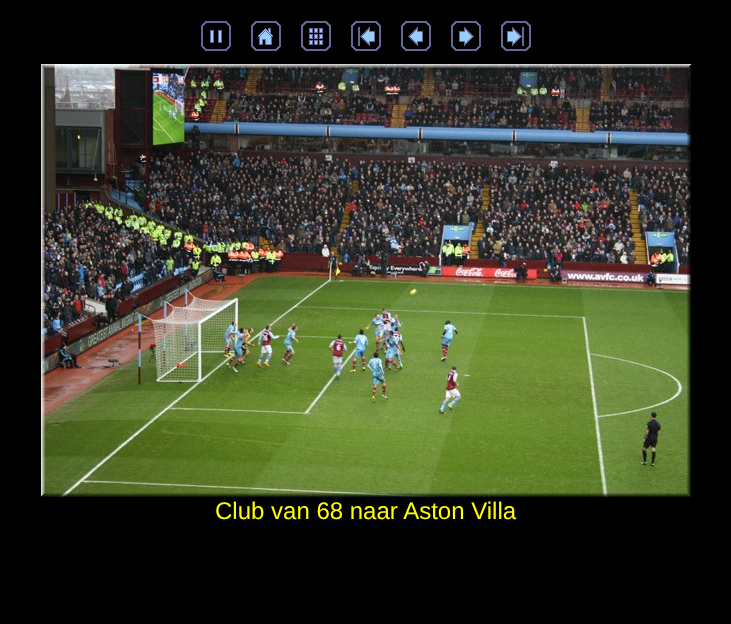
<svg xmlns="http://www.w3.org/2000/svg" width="731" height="624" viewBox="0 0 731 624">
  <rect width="100%" height="100%" fill="#000"/>
  <image x="201" y="21" width="30" height="30" href="img/1.png"/>
  <image x="251" y="21" width="30" height="30" href="img/2.png"/>
  <image x="301" y="21" width="30" height="30" href="img/3.png"/>
  <image x="351" y="21" width="30" height="30" href="img/4.png"/>
  <image x="401" y="21" width="30" height="30" href="img/5.png"/>
  <image x="451" y="21" width="30" height="30" href="img/6.png"/>
  <image x="501" y="21" width="30" height="30" href="img/7.png"/>
  <image x="41" y="64" width="650" height="433" href="img/8.png"/>
  <text x="215" y="519" font-family="Liberation Sans" font-size="24" fill="#ff0">Club van 68 naar Aston Villa</text>
</svg>
